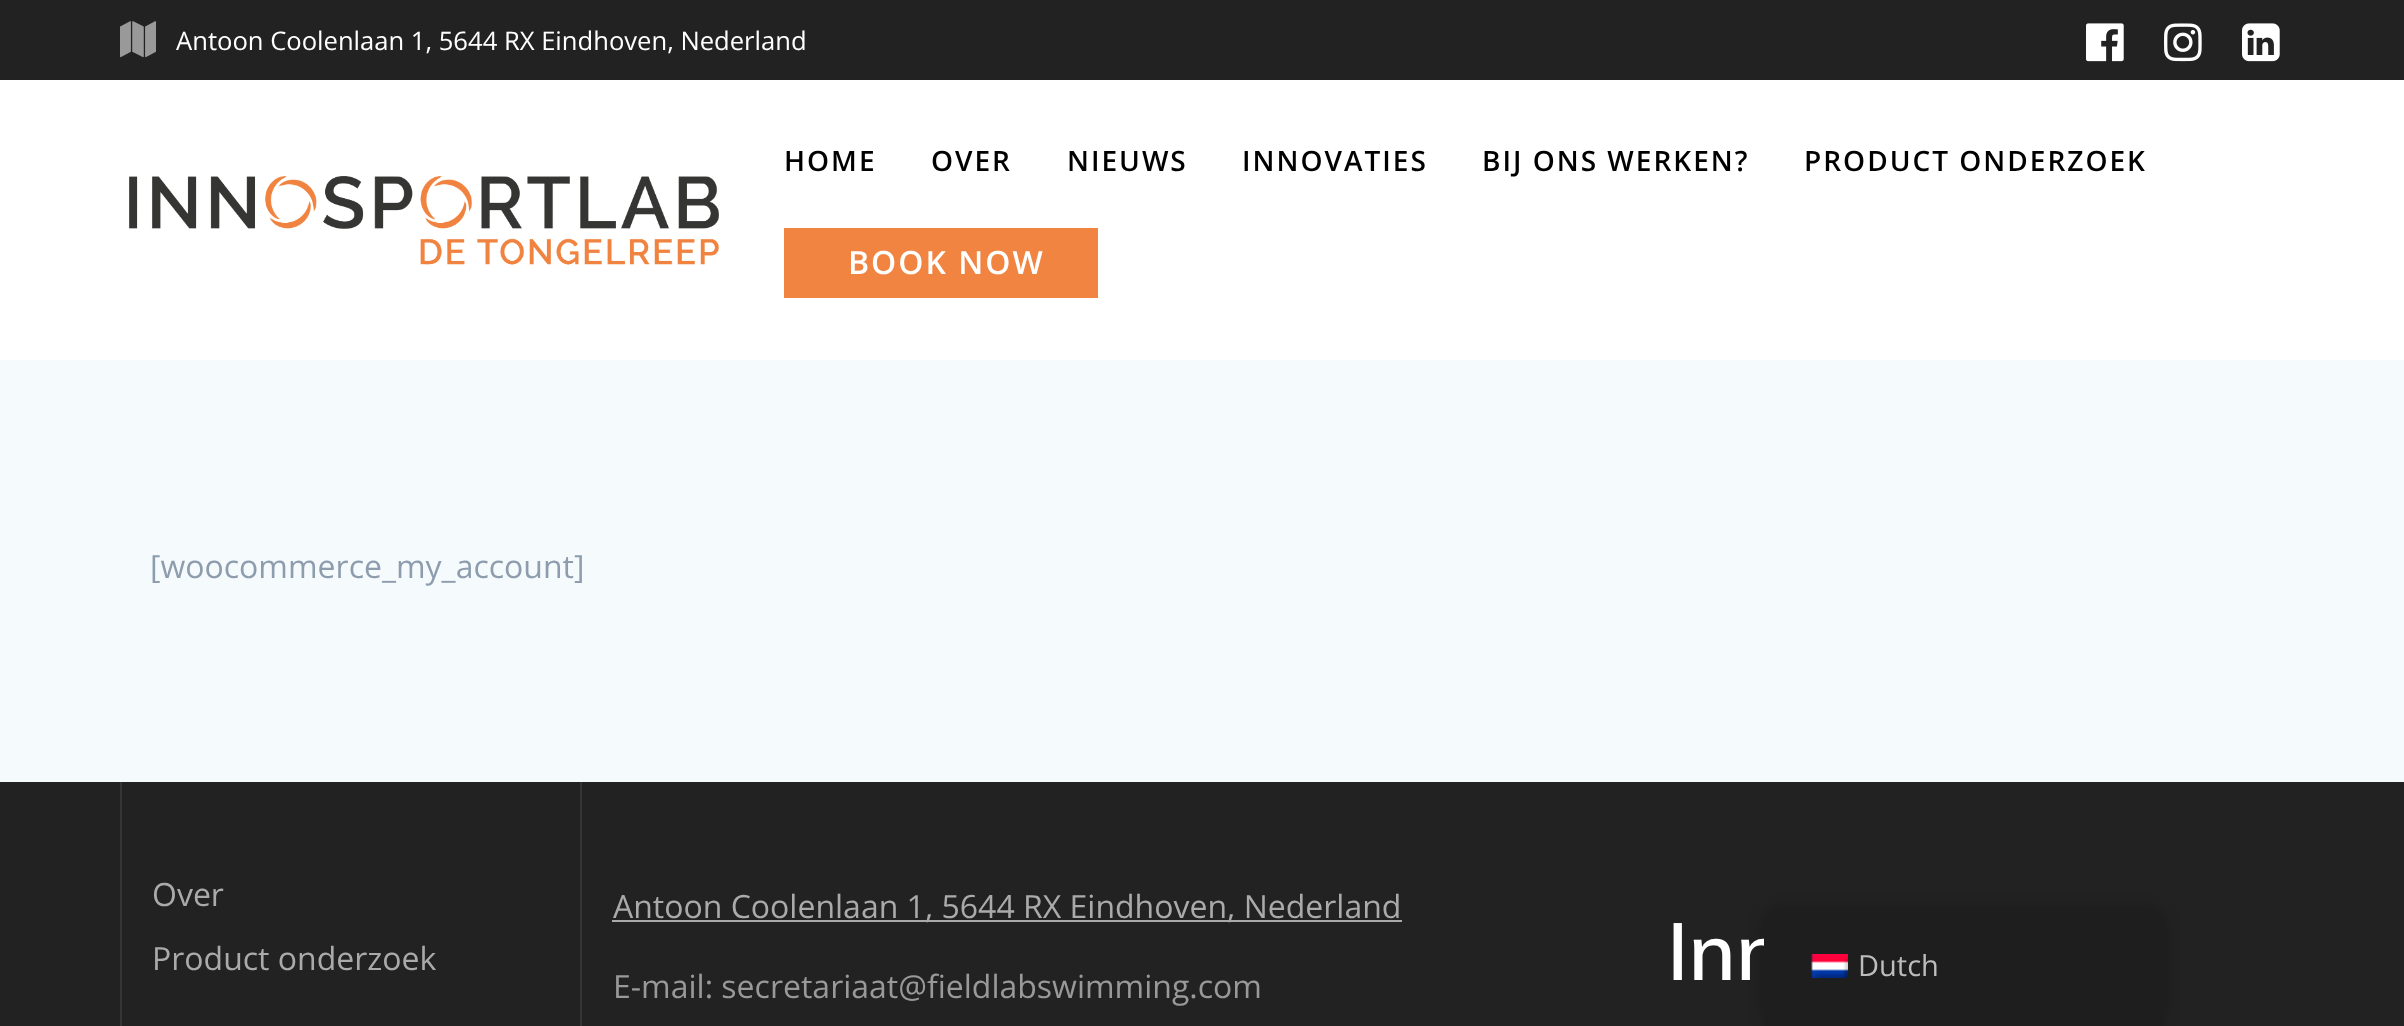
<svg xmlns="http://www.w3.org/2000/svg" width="2404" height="1026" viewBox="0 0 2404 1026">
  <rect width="100%" height="100%" fill="#222"/>
  <image x="120" y="21" width="36" height="37" href="img/1.png"/>
  <image x="2086" y="23" width="38" height="39" href="img/2.png"/>
  <image x="2164" y="23" width="38" height="39" href="img/3.png"/>
  <image x="2242" y="23" width="38" height="39" href="img/4.png"/>
  <path d="M0 80h2404v280H0z" fill="#fff"/>
  <image x="129" y="176" width="590" height="89" href="img/5.png"/>
  <path d="M784 228h314v70H784z" fill="#f18441"/>
  <path d="M0 360h2404v422H0z" fill="#f5fafd"/>
  <path d="M120 782h2v244H120z" fill="#353535"/>
  <path d="M580 782h2v244H580z" fill="#353535"/>
  <path d="M612 920h790v2H612z" fill="#aaa"/>
  <rect x="1764" y="910" width="400" height="116" rx="16" fill="#00000040" filter="blur(8px)"/>
  <text x="176" y="50" font-family="Open Sans" font-size="25.6" fill="#fff">Antoon Coolenlaan 1, 5644 RX Eindhoven, Nederland</text>
  <g font-family="Open Sans" font-size="28" font-weight="600" letter-spacing="2" fill="#000">
    <text x="784" y="171">HOME</text>
    <text x="931" y="171">OVER</text>
    <text x="1067" y="171">NIEUWS</text>
    <text x="1242" y="171">INNOVATIES</text>
    <text x="1482" y="171">BIJ ONS WERKEN?</text>
    <text x="1804" y="171">PRODUCT ONDERZOEK</text>
  </g>
  <text x="848" y="274" font-family="Open Sans" font-size="32" font-weight="600" letter-spacing="2" fill="#fff">BOOK NOW</text>
  <text x="150" y="578" font-family="Open Sans" font-size="32" fill="#8e9dae">[woocommerce_my_account]</text>
  <g font-family="Open Sans" font-size="32" fill="#aaa">
    <text x="152" y="906">Over</text>
    <text x="152" y="970">Product onderzoek</text>
    <text x="613" y="918">Antoon Coolenlaan 1, 5644 RX Eindhoven, Nederland</text>
  </g>
  <text x="613" y="998" font-family="Open Sans" font-size="32" fill="#999">E-mail: secretariaat@fieldlabswimming.com</text>
  <text x="1667" y="980" font-family="Muli" font-size="80" font-weight="600" fill="#fff">Inn</text>
  <path d="M1780 910H2148C2157 910 2164 917 2164 926V1026H1764V926C1764 917 1771 910 1780 910Z" fill="#1e1e1e"/>
  <image x="1811" y="954" width="37" height="24" href="img/6.png"/>
  <text x="1858" y="976" font-family="Open Sans" font-size="29" fill="#bdbdbd">Dutch</text>
</svg>
